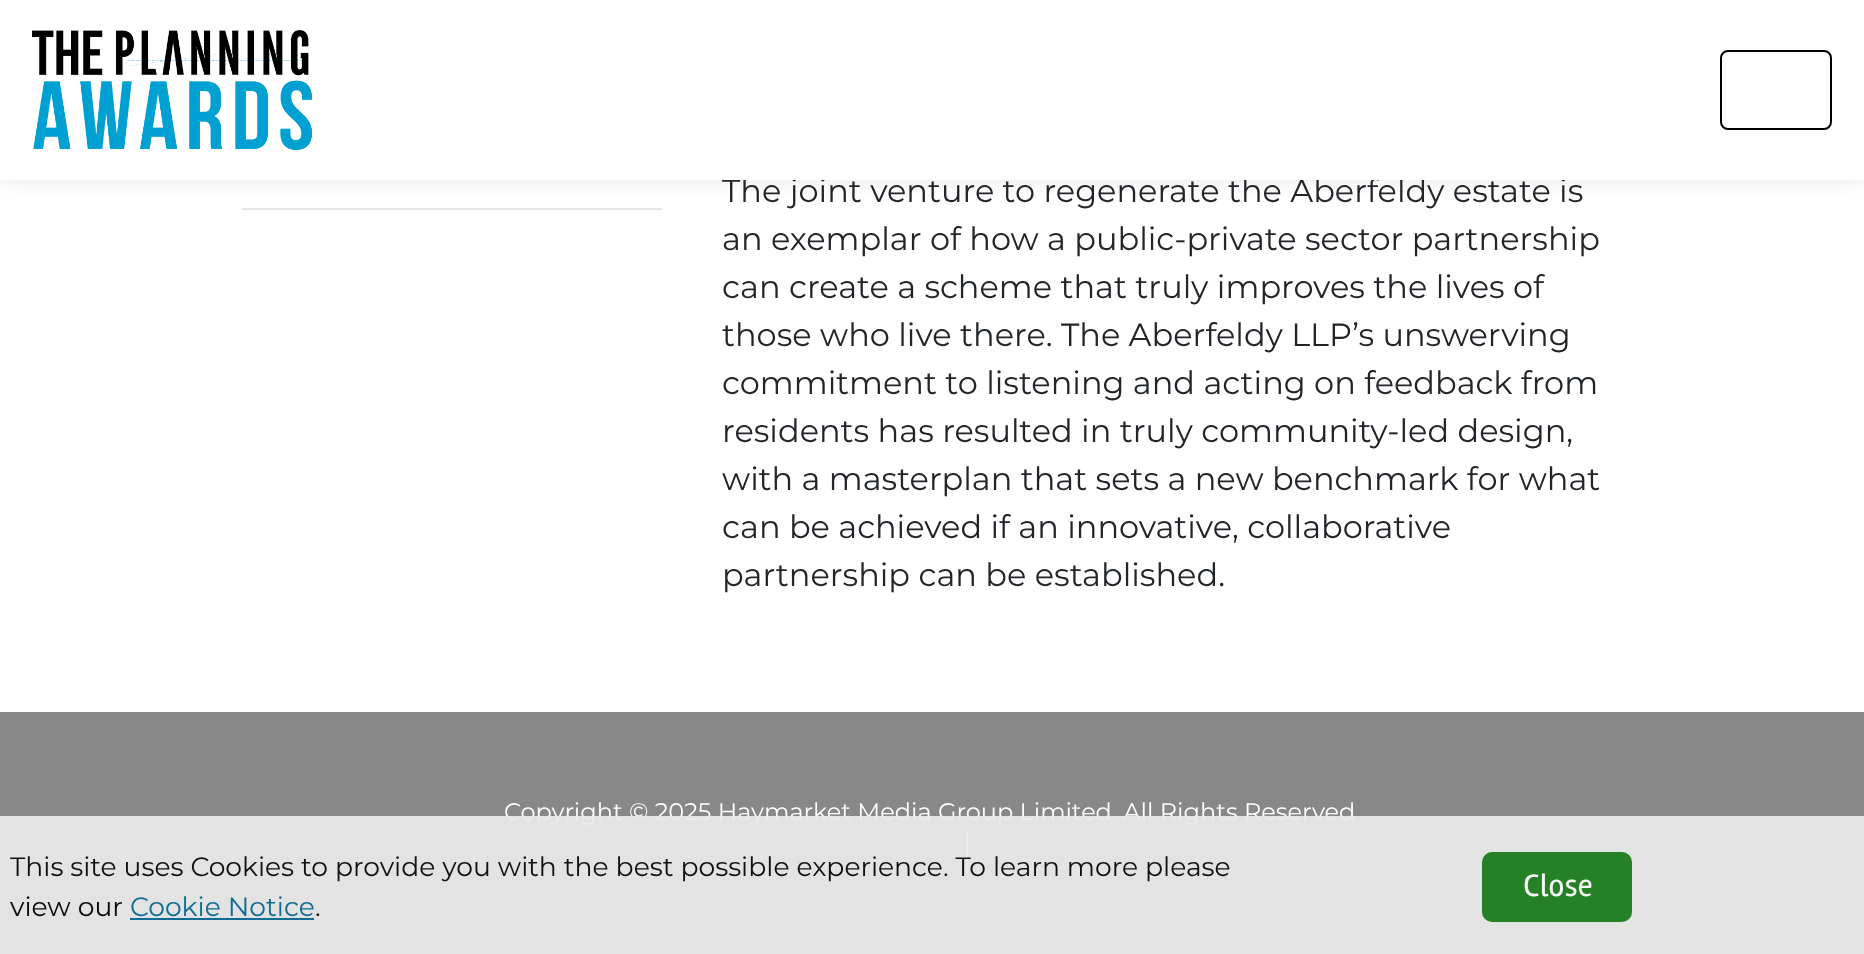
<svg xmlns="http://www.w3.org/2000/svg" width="1864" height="954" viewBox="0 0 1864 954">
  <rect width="100%" height="100%" fill="#fff"/>
  <path d="M242 208h420v2H242z" fill="#e6e6e6"/>
  <path d="M0 0h1864v180H0z" fill="#0000001a" filter="blur(10px)"/>
  <path d="M0 712h1864v242H0z" fill="#888"/>
  <path d="M966 832h2v42H966z" fill="#fff"/>
  <text x="722" y="202" font-family="Montserrat" font-size="32" fill="#212529">The joint venture to regenerate the Aberfeldy estate is</text>
  <path d="M0 0h1864v180H0z" fill="#fff"/>
  <rect x="1721" y="51" width="110" height="78" rx="7" fill="none" stroke="#000" stroke-width="2"/>
  <image x="32" y="30" width="281" height="120" href="img/1.png"/>
  <g font-family="Montserrat" font-size="32" fill="#212529">
    <text x="722" y="250">an exemplar of how a public-private sector partnership</text>
    <text x="722" y="298">can create a scheme that truly improves the lives of</text>
    <text x="722" y="346">those who live there. The Aberfeldy LLP’s unswerving</text>
    <text x="722" y="394">commitment to listening and acting on feedback from</text>
    <text x="722" y="442">residents has resulted in truly community-led design,</text>
    <text x="722" y="490">with a masterplan that sets a new benchmark for what</text>
    <text x="722" y="538">can be achieved if an innovative, collaborative</text>
    <text x="722" y="586">partnership can be established.</text>
  </g>
  <text x="504" y="820" font-family="Montserrat" font-size="24" fill="#fff">Copyright © 2025 Haymarket Media Group Limited. All Rights Reserved</text>
  <path d="M0 816h1864v138H0z" fill="#eaeaeaed"/>
  <text x="10" y="876" font-family="Montserrat" font-size="26.6" fill="#101010">This site uses Cookies to provide you with the best possible experience. To learn more please</text>
  <text x="10" y="916" font-family="Montserrat" font-size="26.6" fill="#0a0a0a">view our</text>
  <text x="130" y="916" font-family="Montserrat" font-size="26.6" fill="#0f6c92">Cookie Notice</text>
  <path d="M130 918h184v2H130z" fill="#0f6c92"/>
  <text x="315" y="916" font-family="Montserrat" font-size="26.6" fill="#0a0a0a">.</text>
  <rect x="1482" y="852" width="150" height="70" rx="10" fill="#258125"/>
  <text x="1523" y="896" font-family="Rambla" font-size="32" fill="#f7f7f7">Close</text>
</svg>
